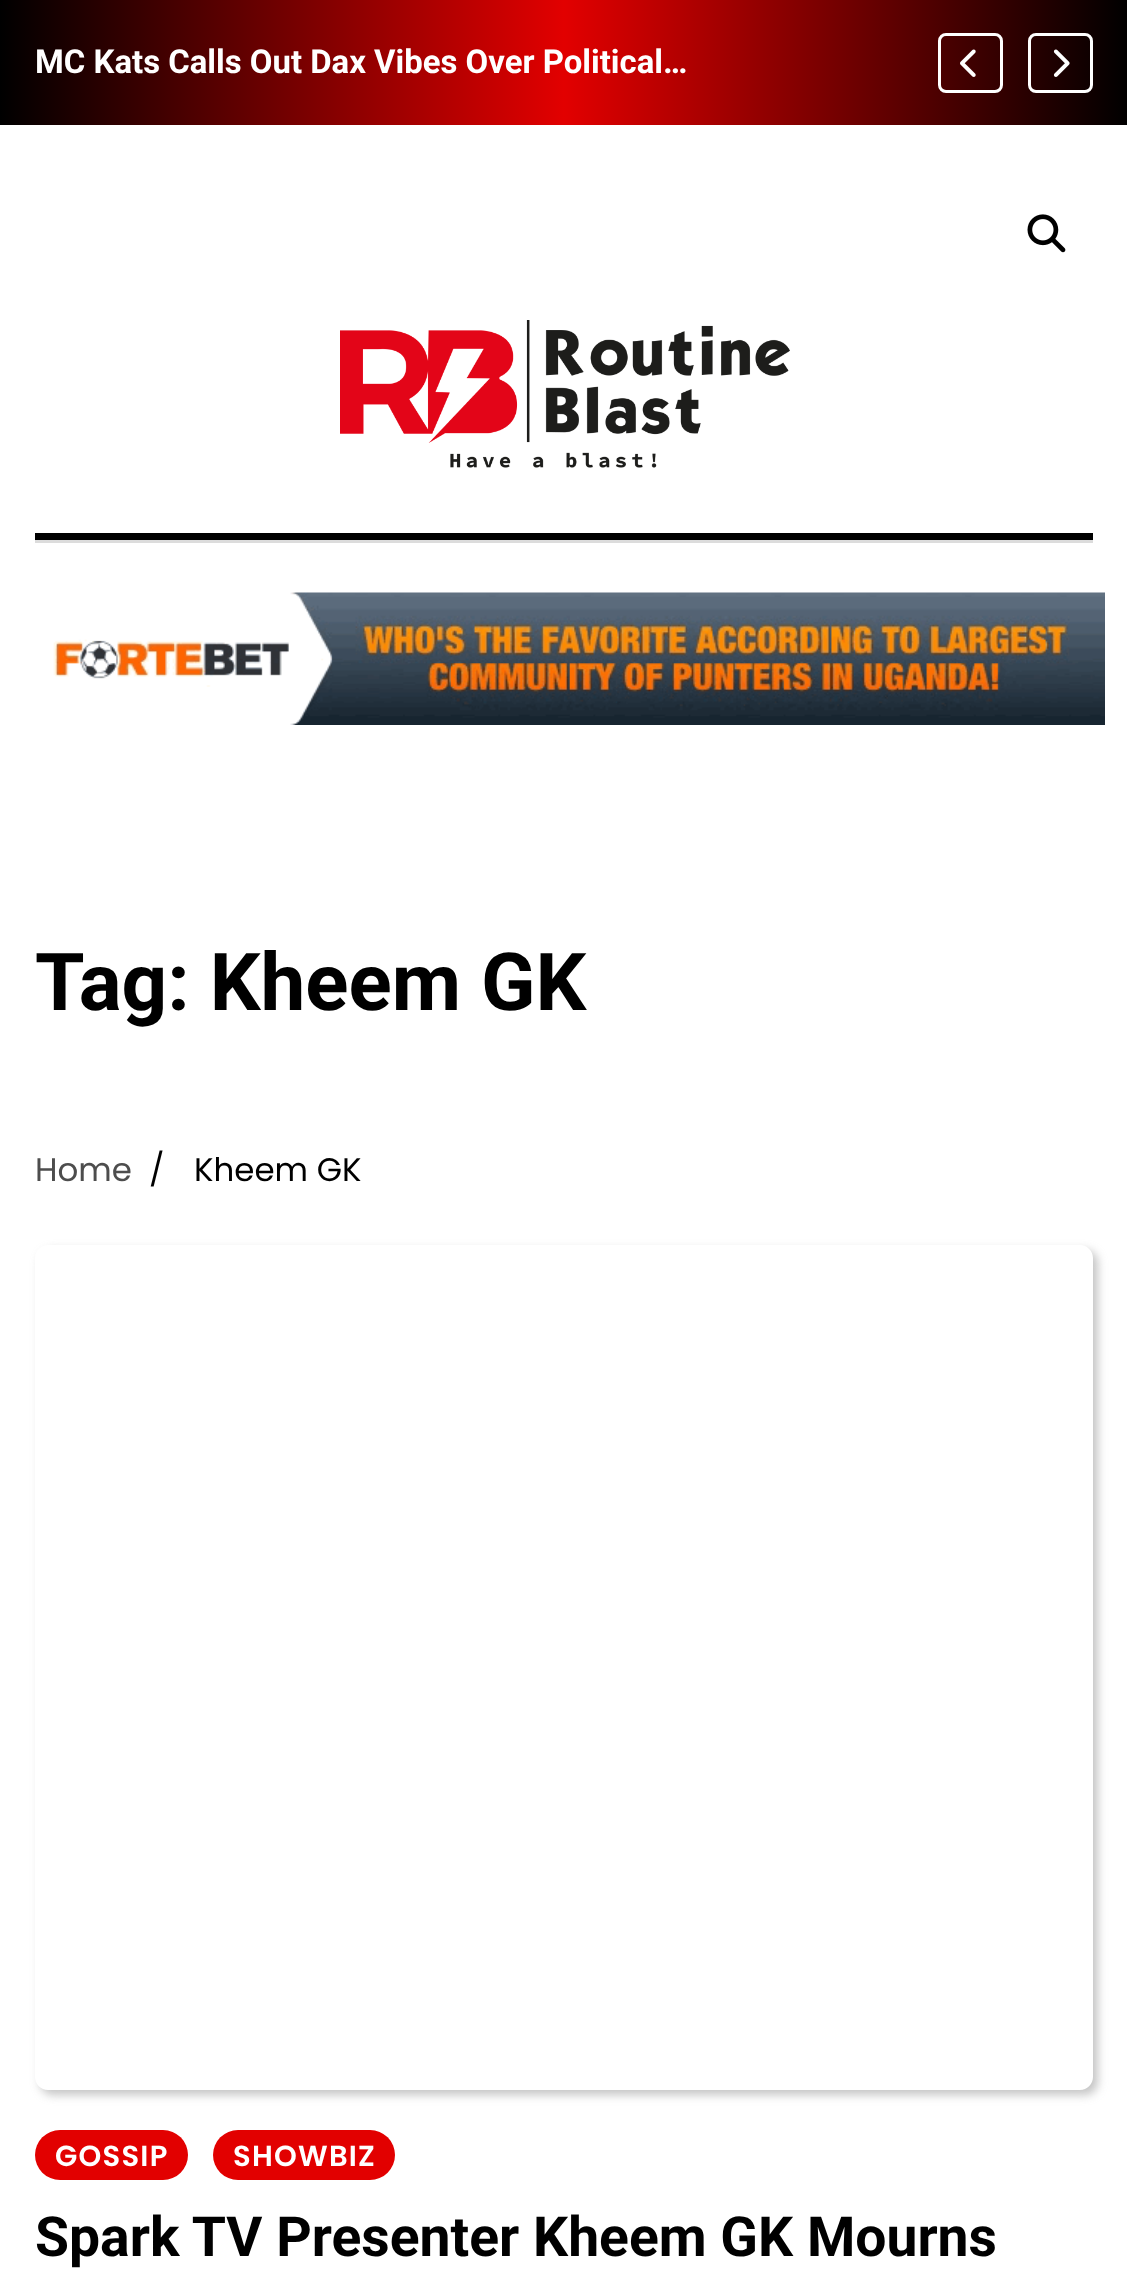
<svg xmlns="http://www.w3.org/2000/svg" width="1127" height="2292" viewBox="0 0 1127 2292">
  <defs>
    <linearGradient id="g1" gradientUnits="userSpaceOnUse" x1="0" y1="63" x2="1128" y2="62"><stop offset="0" stop-color="#000"/><stop offset="0.5" stop-color="#e20000"/><stop offset="1" stop-color="#000"/></linearGradient>
    <clipPath id="clip1"><path d="M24 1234H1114V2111H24ZM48 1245H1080C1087 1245 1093 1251 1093 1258V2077C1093 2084 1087 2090 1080 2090H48C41 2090 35 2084 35 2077V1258C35 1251 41 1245 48 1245Z" clip-rule="evenodd"/></clipPath>
  </defs>
  <rect width="100%" height="100%" fill="#fff"/>
  <path d="M0 0h1127v125H0z" fill="url(#g1)"/>
  <rect x="939.5" y="34.5" width="62" height="57" rx="6.5" fill="none" stroke="#fff" stroke-width="3"/>
  <image x="960" y="49" width="16" height="28" href="img/1.png"/>
  <rect x="1029.5" y="34.5" width="62" height="57" rx="6.5" fill="none" stroke="#fff" stroke-width="3"/>
  <image x="1053" y="49" width="17" height="28" href="img/2.png"/>
  <image x="1027" y="214" width="39" height="39" href="img/3.png"/>
  <image x="340" y="320" width="450" height="148" href="img/4.png"/>
  <path d="M35 533h1058v7H35z" fill="#000"/>
  <path d="M35 540h1058v3H35z" fill="#dcdcdc"/>
  <image x="53" y="592" width="1052" height="133" href="img/5.png"/>
  <g clip-path="url(#clip1)">
    <rect x="40" y="1250" width="1058" height="845" rx="13" fill="#80808075" filter="blur(5px)"/>
  </g>
  <rect x="35" y="2130" width="153" height="50" rx="25" fill="#e20000"/>
  <rect x="213" y="2130" width="182" height="50" rx="25" fill="#e20000"/>
  <text x="35" y="73" font-family="Roboto" font-size="32.9" font-weight="bold" fill="#fff">MC Kats Calls Out Dax Vibes Over Political…</text>
  <text x="35" y="1010" font-family="Roboto" font-size="80" font-weight="bold" fill="#000">Tag: Kheem GK</text>
  <text x="35" y="1181" font-family="Poppins" font-size="32.5" fill="#4d4d4d">Home</text>
  <g font-family="Poppins" font-size="32.5" fill="#000">
    <text x="149" y="1181">/</text>
    <text x="194" y="1181">Kheem GK</text>
  </g>
  <g font-family="Poppins" font-size="29" font-weight="600" letter-spacing="1.25" fill="#fff">
    <text x="55" y="2166">GOSSIP</text>
    <text x="233" y="2166">SHOWBIZ</text>
  </g>
  <text x="35" y="2256" font-family="Roboto" font-size="55.25" font-weight="bold" fill="#000">Spark TV Presenter Kheem GK Mourns</text>
</svg>
